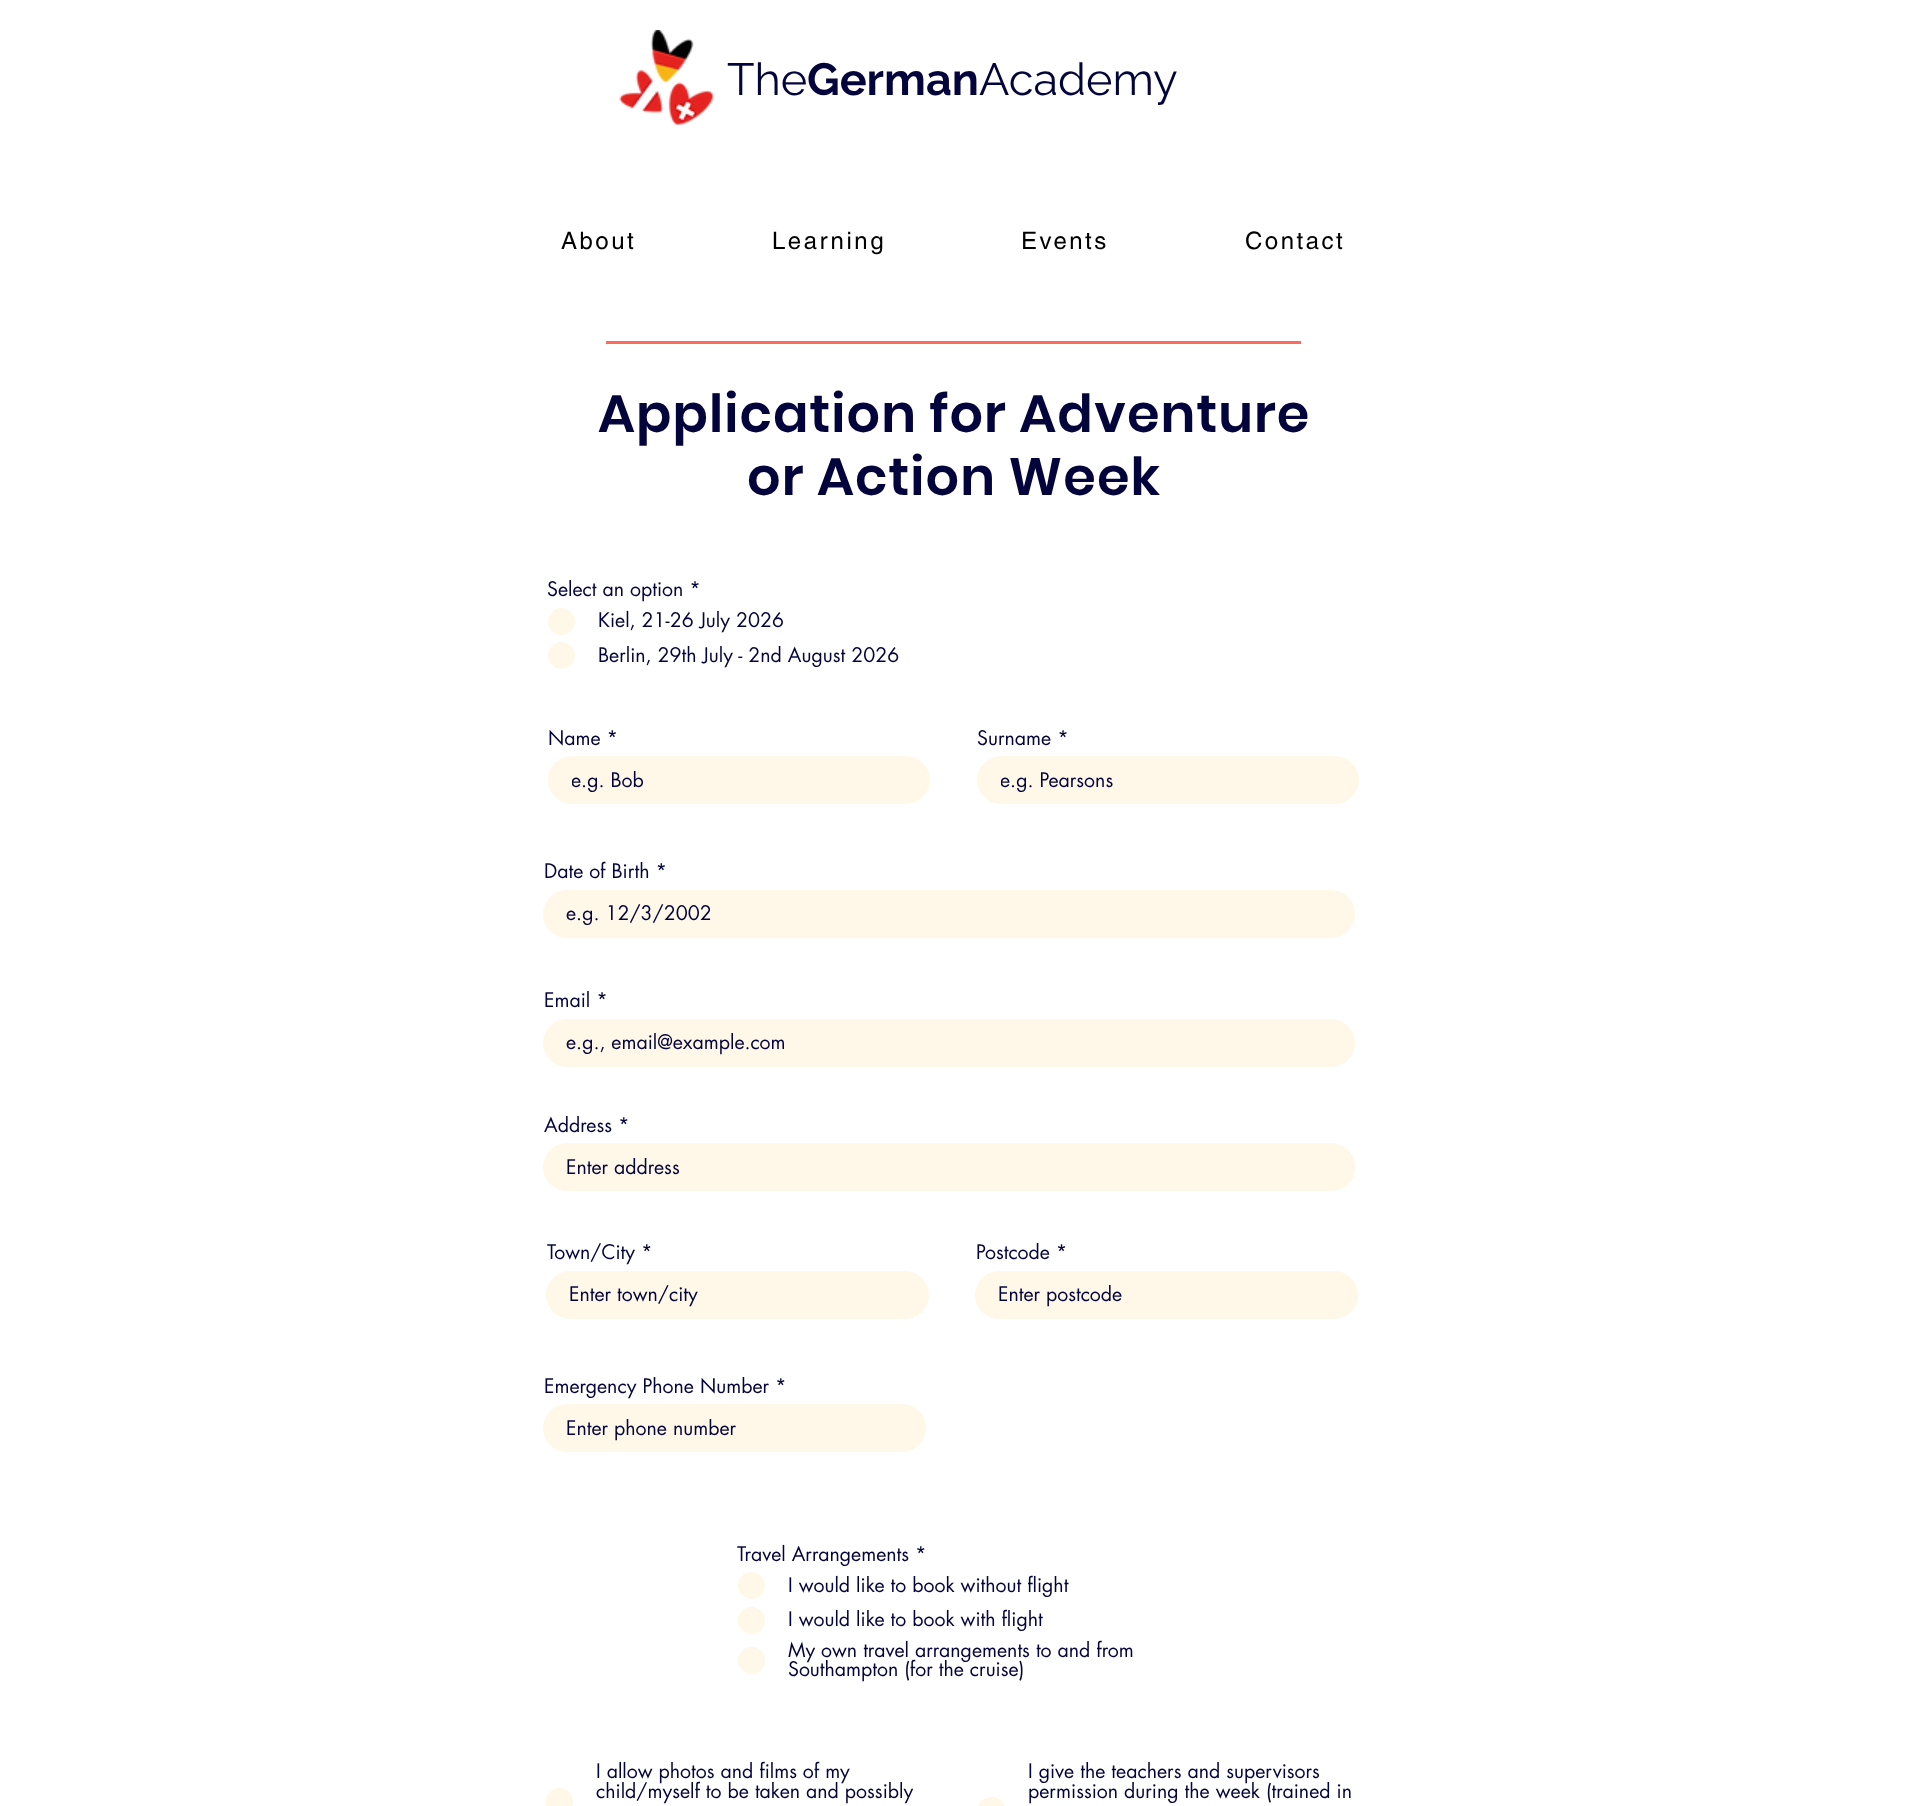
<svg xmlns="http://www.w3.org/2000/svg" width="1906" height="1806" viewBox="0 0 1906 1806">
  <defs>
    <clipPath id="clip1"><path d="M572 767h352v27H572z"/></clipPath>
    <clipPath id="clip2"><path d="M1001 767h352v27H1001z"/></clipPath>
  </defs>
  <rect width="100%" height="100%" fill="#fff"/>
  <image x="619" y="30" width="96" height="96" href="img/1.png"/>
  <path d="M606 341h695v3H606z" fill="#fc6c5c"/>
  <circle cx="561.5" cy="621.5" r="13.5" fill="#fff8e8"/>
  <circle cx="561.5" cy="655.5" r="13.5" fill="#fff8e8"/>
  <rect x="548" y="756" width="382" height="48" rx="24" fill="#fff8e8"/>
  <rect x="977" y="756" width="382" height="48" rx="24" fill="#fff8e8"/>
  <rect x="543" y="890" width="812" height="48" rx="24" fill="#fff8e8"/>
  <rect x="543" y="1019" width="812" height="48" rx="24" fill="#fff8e8"/>
  <rect x="543" y="1143" width="812" height="48" rx="24" fill="#fff8e8"/>
  <rect x="546" y="1271" width="383" height="48" rx="24" fill="#fff8e8"/>
  <rect x="975" y="1271" width="383" height="48" rx="24" fill="#fff8e8"/>
  <rect x="543" y="1404" width="383" height="48" rx="24" fill="#fff8e8"/>
  <circle cx="751.5" cy="1585.5" r="13.5" fill="#fff8e8"/>
  <circle cx="751.5" cy="1620.5" r="13.5" fill="#fff8e8"/>
  <circle cx="751.5" cy="1660.5" r="13.5" fill="#fff8e8"/>
  <circle cx="559.5" cy="1801.5" r="13.5" fill="#fff8e8"/>
  <rect x="978" y="1797" width="27" height="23" rx="13.5" fill="#fff8e8"/>
  <text x="727" y="95" font-family="Raleway" font-size="45" fill="#04043c">The</text>
  <text x="807" y="95" font-family="Raleway" font-size="45" font-weight="bold" fill="#04043c">German</text>
  <text x="979" y="95" font-family="Raleway" font-size="45" fill="#04043c">Academy</text>
  <g font-family="helvetica" font-size="24" letter-spacing="2.5" fill="#000">
    <text x="561" y="249">About</text>
    <text x="772" y="249">Learning</text>
    <text x="1021" y="249">Events</text>
    <text x="1245" y="249">Contact</text>
  </g>
  <g font-family="Poppins" font-size="52.5" font-weight="600" letter-spacing="1.05" fill="#04043c">
    <text x="598" y="432">Application for Adventure</text>
    <text x="747" y="495">or Action Week</text>
  </g>
  <g font-family="futura" font-size="19.5" fill="#04043c">
    <text x="547" y="596">Select an option *</text>
    <text x="598" y="627">Kiel, 21-26 July 2026</text>
    <text x="598" y="662">Berlin, 29th July - 2nd August 2026</text>
    <text x="548" y="745">Name *</text>
  </g>
  <g clip-path="url(#clip1)">
    <text x="571" y="787" font-family="futura" font-size="19.5" fill="#04043c">e.g. Bob</text>
  </g>
  <text x="977" y="745" font-family="futura" font-size="19.5" fill="#04043c">Surname *</text>
  <g clip-path="url(#clip2)">
    <text x="1000" y="787" font-family="futura" font-size="19.5" fill="#04043c">e.g. Pearsons</text>
  </g>
  <g font-family="futura" font-size="19.5" fill="#04043c">
    <text x="544" y="878">Date of Birth *</text>
    <text x="566" y="920">e.g. 12/3/2002</text>
    <text x="544" y="1007">Email *</text>
    <text x="566" y="1049">e.g., email@example.com</text>
    <text x="544" y="1132">Address *</text>
    <text x="566" y="1174">Enter address</text>
    <text x="547" y="1259">Town/City *</text>
    <text x="569" y="1301">Enter town/city</text>
    <text x="976" y="1259">Postcode *</text>
    <text x="998" y="1301">Enter postcode</text>
    <text x="544" y="1393">Emergency Phone Number *</text>
    <text x="566" y="1435">Enter phone number</text>
    <text x="737" y="1561">Travel Arrangements *</text>
    <text x="788" y="1592">I would like to book without flight</text>
    <text x="788" y="1626">I would like to book with flight</text>
    <text x="788" y="1657">My own travel arrangements to and from</text>
    <text x="788" y="1676">Southampton (for the cruise)</text>
    <text x="596" y="1778">I allow photos and films of my</text>
    <text x="596" y="1798">child/myself to be taken and possibly</text>
    <text x="1028" y="1778">I give the teachers and supervisors</text>
    <text x="1028" y="1798">permission during the week (trained in</text>
  </g>
</svg>
